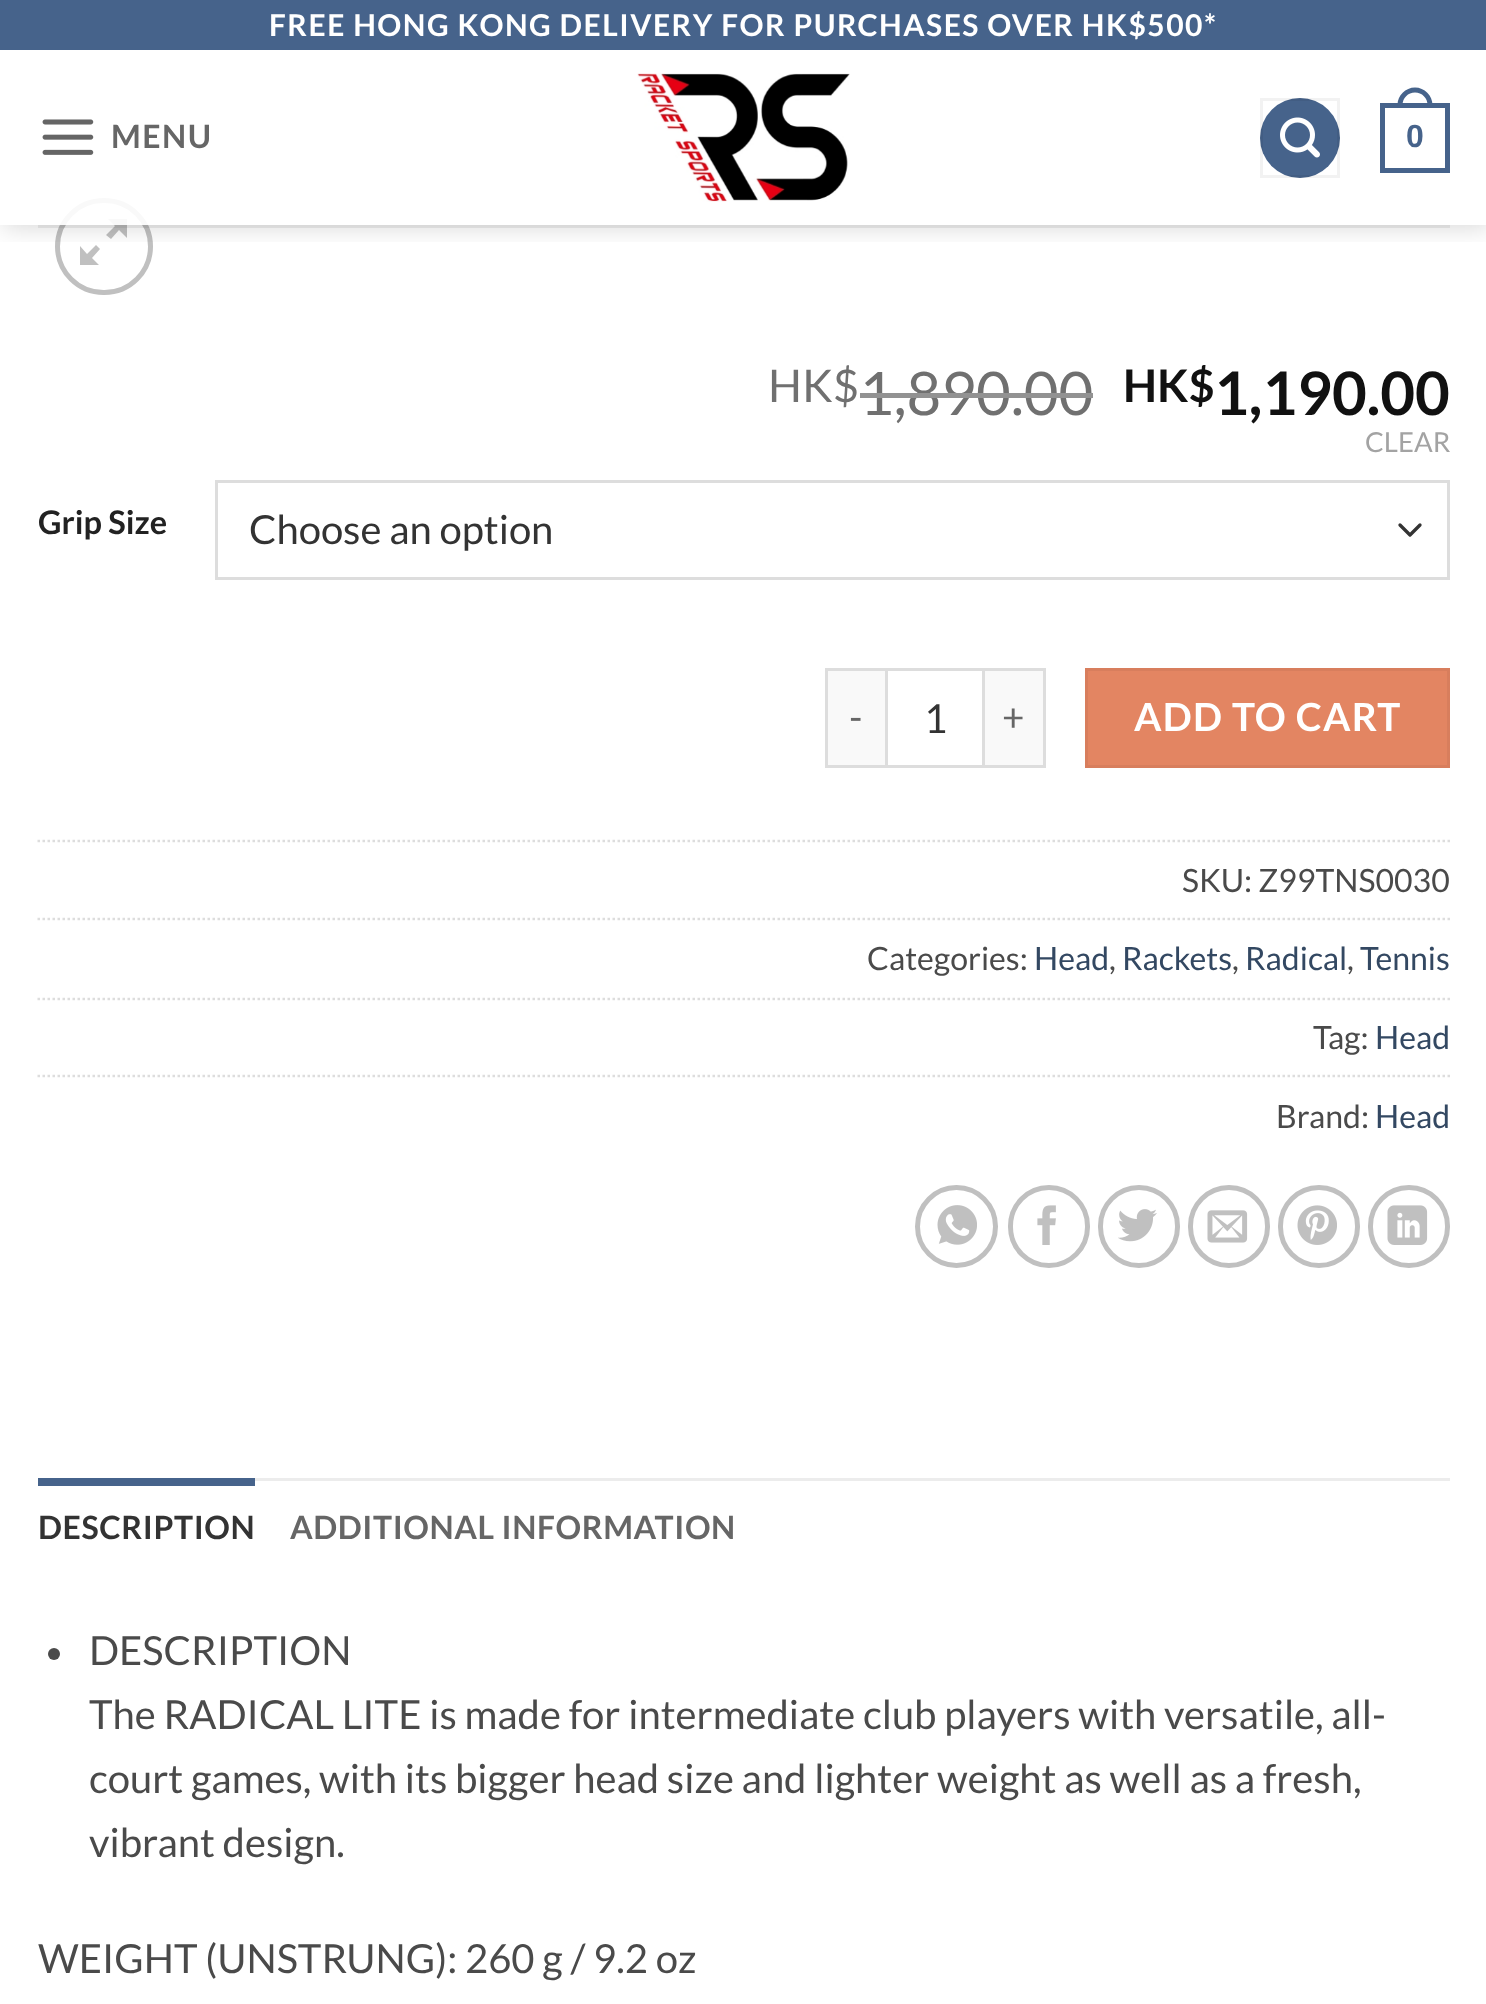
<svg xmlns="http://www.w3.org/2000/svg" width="1486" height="2004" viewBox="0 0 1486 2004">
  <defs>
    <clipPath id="clip1"><path d="M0 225h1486v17H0z"/></clipPath>
  </defs>
  <rect width="100%" height="100%" fill="#fff"/>
  <rect x="57.5" y="200.5" width="93" height="92" rx="46" fill="none" stroke="#c0c0c0" stroke-width="5"/>
  <path d="M127 219V238L119 230L111 239L106 235L115 226L108 219ZM100 249L92 258L99 265H80V246L87 254L96 245Z" fill="#c0c0c0"/>
  <g clip-path="url(#clip1)">
    <path d="M3 3h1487v225H3z" fill="#00000026" filter="blur(12.5px)"/>
  </g>
  <path d="M0 0h1486v50H0z" fill="#46638b"/>
  <image x="42" y="119" width="52" height="36" href="img/1.png"/>
  <image x="637" y="73" width="213" height="129" href="img/2.png"/>
  <circle cx="1300" cy="138" r="40" fill="#46638b"/>
  <path d="M1261.5 99.5h77v77H1261.5z" fill="none" stroke="#0000000d" stroke-width="3"/>
  <image x="1280" y="117" width="40" height="41" href="img/3.png"/>
  <path d="M1382.5 105.5h65v65H1382.5z" fill="none" stroke="#46638b" stroke-width="5"/>
  <path d="M1415 87.5C1424.5 87.5 1432.5 95.5 1432.5 105V107.5H1397.5V105C1397.5 95.5 1405.5 87.5 1415 87.5ZM1415 92.5C1422 92.5 1427.5 98 1427.5 105V107.5H1402.5V105C1402.5 98 1408 92.5 1415 92.5Z" fill="#46638b" fill-rule="evenodd"/>
  <path d="M38 225h1412v3H38z" fill="#4a4a4a1a"/>
  <path d="M60 198h88v27H60z" fill="#ffffffe6"/>
  <path d="M1400 525L1410 535L1420 525" fill="none" stroke="#333" stroke-width="3.3" stroke-linecap="round" stroke-linejoin="round"/>
  <path d="M216.5 481.5h1232v97H216.5z" fill="none" stroke="#ddd" stroke-width="3"/>
  <path d="M828 671h57v94H828z" fill="#f9f9f9"/>
  <path d="M825 668h60v3H825z" fill="#ddd"/>
  <path d="M825 765h60v3H825z" fill="#ddd"/>
  <path d="M825 668h3v100H825z" fill="#ddd"/>
  <path d="M886.5 669.5h97v97H886.5z" fill="none" stroke="#ddd" stroke-width="3"/>
  <path d="M985 671h58v94H985z" fill="#f9f9f9"/>
  <path d="M985 668h60v3H985z" fill="#ddd"/>
  <path d="M1043 668h3v100H1043z" fill="#ddd"/>
  <path d="M985 765h60v3H985z" fill="#ddd"/>
  <path d="M1086.5 669.5h362v97H1086.5z" fill="#e38562" stroke="#d87e5d" stroke-width="3"/>
  <path d="M37.5 841H1450" fill="none" stroke="#ddd" stroke-width="2.5" stroke-dasharray="2.5 2.5"/>
  <path d="M37.5 919H1450" fill="none" stroke="#ddd" stroke-width="2.5" stroke-dasharray="2.5 2.5"/>
  <path d="M37.5 999H1450" fill="none" stroke="#ddd" stroke-width="2.5" stroke-dasharray="2.5 2.5"/>
  <path d="M37.5 1076H1450" fill="none" stroke="#ddd" stroke-width="2.5" stroke-dasharray="2.5 2.5"/>
  <circle cx="956.5" cy="1226.5" r="39" fill="none" stroke="#c0c0c0" stroke-width="5"/>
  <image x="937" y="1205" width="40" height="40" href="img/4.png"/>
  <rect x="1010.5" y="1187.5" width="77" height="78" rx="38.5" fill="none" stroke="#c0c0c0" stroke-width="5"/>
  <image x="1037" y="1205" width="19" height="40" href="img/5.png"/>
  <rect x="1100.5" y="1187.5" width="77" height="78" rx="38.5" fill="none" stroke="#c0c0c0" stroke-width="5"/>
  <image x="1118" y="1209" width="39" height="33" href="img/6.png"/>
  <rect x="1190.5" y="1187.5" width="77" height="78" rx="38.5" fill="none" stroke="#c0c0c0" stroke-width="5"/>
  <image x="1207" y="1210" width="41" height="33" href="img/7.png"/>
  <rect x="1280.5" y="1187.5" width="77" height="78" rx="38.5" fill="none" stroke="#c0c0c0" stroke-width="5"/>
  <image x="1297" y="1205" width="40" height="40" href="img/8.png"/>
  <rect x="1370.5" y="1187.5" width="77" height="78" rx="38.5" fill="none" stroke="#c0c0c0" stroke-width="5"/>
  <image x="1387" y="1205" width="41" height="40" href="img/9.png"/>
  <path d="M255 1478h1195v3H255z" fill="#ececec"/>
  <path d="M38 1478h217v8H38z" fill="#46638b"/>
  <circle cx="54" cy="1654" r="6" fill="#4a4a4a"/>
  <text x="269" y="36" font-family="Lato" font-size="30" font-weight="bold" letter-spacing="1.5" fill="#fff">FREE HONG KONG DELIVERY FOR PURCHASES OVER HK$500*</text>
  <text x="111" y="148" font-family="Lato" font-size="32" font-weight="bold" letter-spacing="1.5" fill="#666">MENU</text>
  <text x="1406" y="147" font-family="Liberation Sans" font-size="32" font-weight="bold" fill="#46638b">0</text>
  <text x="768" y="402" font-family="Lato" font-size="45" fill="#707070">HK$</text>
  <text x="859" y="415" font-family="Lato" font-size="60" fill="#707070">1,890.00</text>
  <path d="M860 393h233v5H860z" fill="#929292"/>
  <text x="1123" y="402" font-family="Lato" font-size="45" font-weight="bold" fill="#111">HK$</text>
  <text x="1214" y="415" font-family="Lato" font-size="60" font-weight="bold" fill="#111">1,190.00</text>
  <text x="38" y="534" font-family="Lato" font-size="32.5" font-weight="bold" fill="#222">Grip Size</text>
  <text x="1365" y="452" font-family="Lato" font-size="27.5" fill="#a3a3a3">CLEAR</text>
  <text x="249" y="544" font-family="Lato" font-size="40" fill="#333">Choose an option</text>
  <text x="849" y="731" font-family="Lato" font-size="38.75" letter-spacing="1.25" fill="#666">-</text>
  <text x="924" y="733" font-family="Lato" font-size="40" fill="#333">1</text>
  <text x="1002" y="731" font-family="Lato" font-size="38.75" letter-spacing="1.25" fill="#666">+</text>
  <text x="1134" y="731" font-family="Lato" font-size="38.75" font-weight="bold" letter-spacing="1.25" fill="#fff">ADD TO CART</text>
  <g font-family="Lato" font-size="32" fill="#4a4a4a">
    <text x="1182" y="892">SKU: Z99TNS0030</text>
    <text x="867" y="970">Categories:</text>
  </g>
  <text x="1034" y="970" font-family="Lato" font-size="32" fill="#334862">Head</text>
  <text x="1109" y="970" font-family="Lato" font-size="32" fill="#4a4a4a">,</text>
  <text x="1122" y="970" font-family="Lato" font-size="32" fill="#334862">Rackets</text>
  <text x="1232" y="970" font-family="Lato" font-size="32" fill="#4a4a4a">,</text>
  <text x="1245" y="970" font-family="Lato" font-size="32" fill="#334862">Radical</text>
  <text x="1347" y="970" font-family="Lato" font-size="32" fill="#4a4a4a">,</text>
  <text x="1360" y="970" font-family="Lato" font-size="32" fill="#334862">Tennis</text>
  <text x="1313" y="1049" font-family="Lato" font-size="32" fill="#4a4a4a">Tag:</text>
  <text x="1375" y="1049" font-family="Lato" font-size="32" fill="#334862">Head</text>
  <text x="1276" y="1128" font-family="Lato" font-size="32" fill="#4a4a4a">Brand:</text>
  <text x="1375" y="1128" font-family="Lato" font-size="32" fill="#334862">Head</text>
  <text x="38" y="1539" font-family="Lato" font-size="32" font-weight="bold" letter-spacing="0.6" fill="#333">DESCRIPTION</text>
  <text x="290" y="1539" font-family="Lato" font-size="32" font-weight="bold" letter-spacing="0.6" fill="#666">ADDITIONAL INFORMATION</text>
  <g font-family="Lato" font-size="40" fill="#4a4a4a">
    <text x="89" y="1665">DESCRIPTION</text>
    <text x="89" y="1729">The RADICAL LITE is made for intermediate club players with versatile, all-</text>
    <text x="89" y="1793">court games, with its bigger head size and lighter weight as well as a fresh,</text>
    <text x="89" y="1857">vibrant design.</text>
    <text x="38" y="1973">WEIGHT (UNSTRUNG): 260 g / 9.2 oz</text>
  </g>
</svg>
